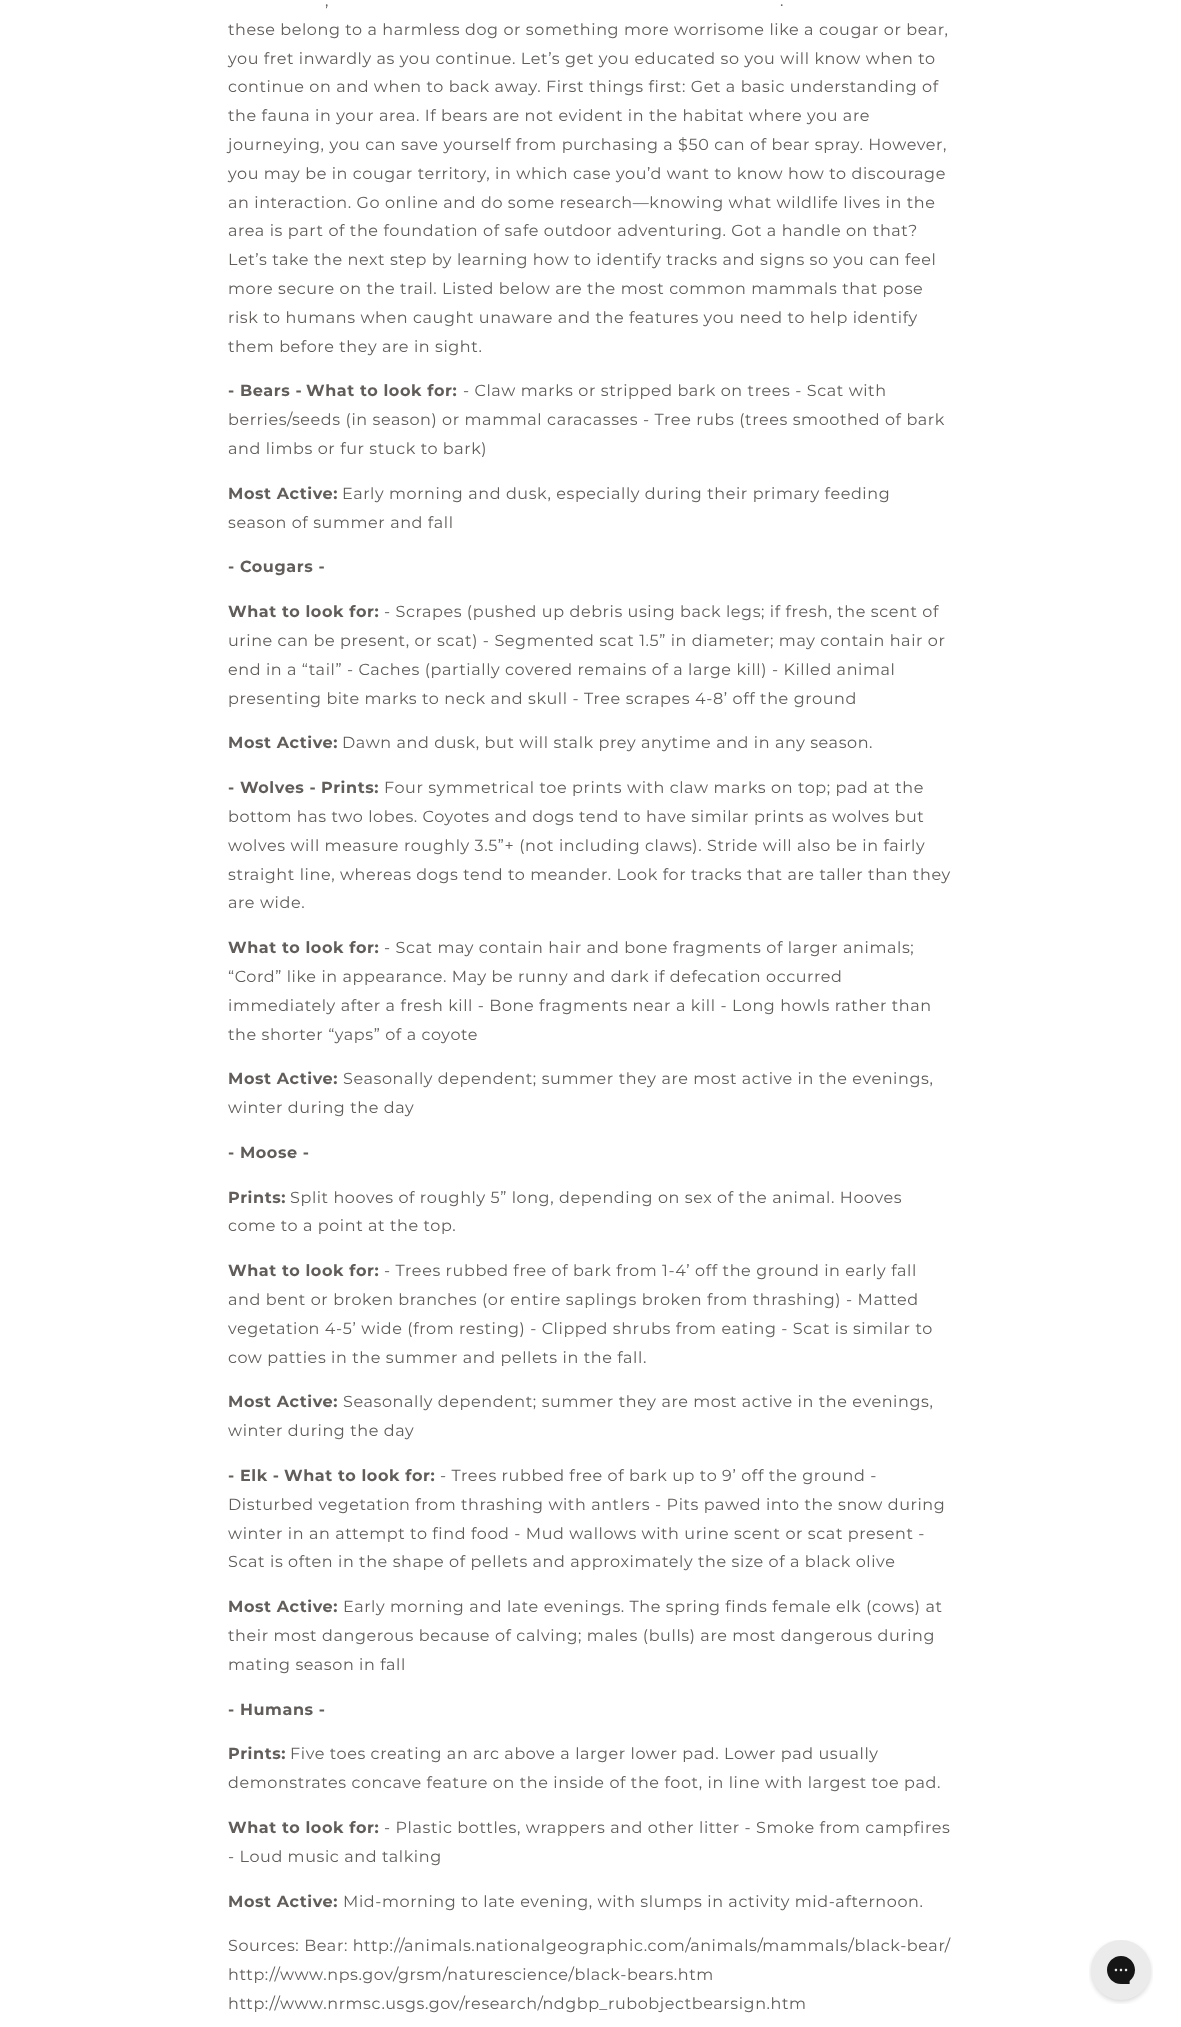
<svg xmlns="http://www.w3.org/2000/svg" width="1181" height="2027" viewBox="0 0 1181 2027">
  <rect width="100%" height="100%" fill="#fff"/>
  <image x="1089" y="1940" width="64" height="64" href="img/1.png"/>
  <g font-family="Montserrat" font-size="16" letter-spacing="0.6" fill="#605d5b">
    <text x="325" y="6">,</text>
    <text x="780" y="6">.</text>
    <text x="228" y="35">these belong to a harmless dog or something more worrisome like a cougar or bear,</text>
    <text x="228" y="64">you fret inwardly as you continue. Let’s get you educated so you will know when to</text>
    <text x="228" y="92">continue on and when to back away. First things first: Get a basic understanding of</text>
    <text x="228" y="121">the fauna in your area. If bears are not evident in the habitat where you are</text>
    <text x="228" y="150">journeying, you can save yourself from purchasing a $50 can of bear spray. However,</text>
    <text x="228" y="179">you may be in cougar territory, in which case you’d want to know how to discourage</text>
    <text x="228" y="208">an interaction. Go online and do some research—knowing what wildlife lives in the</text>
    <text x="228" y="236">area is part of the foundation of safe outdoor adventuring. Got a handle on that?</text>
    <text x="228" y="265">Let’s take the next step by learning how to identify tracks and signs so you can feel</text>
    <text x="228" y="294">more secure on the trail. Listed below are the most common mammals that pose</text>
    <text x="228" y="323">risk to humans when caught unaware and the features you need to help identify</text>
    <text x="228" y="352">them before they are in sight.</text>
  </g>
  <g font-family="Montserrat" font-size="16" font-weight="bold" letter-spacing="0.6" fill="#605d5b">
    <text x="228" y="396">- Bears -</text>
    <text x="306" y="396">What to look for:</text>
  </g>
  <g font-family="Montserrat" font-size="16" letter-spacing="0.6" fill="#605d5b">
    <text x="463" y="396">- Claw marks or stripped bark on trees - Scat with</text>
    <text x="228" y="425">berries/seeds (in season) or mammal caracasses - Tree rubs (trees smoothed of bark</text>
    <text x="228" y="454">and limbs or fur stuck to bark)</text>
  </g>
  <text x="228" y="499" font-family="Montserrat" font-size="16" font-weight="bold" letter-spacing="0.6" fill="#605d5b">Most Active:</text>
  <g font-family="Montserrat" font-size="16" letter-spacing="0.6" fill="#605d5b">
    <text x="342" y="499">Early morning and dusk, especially during their primary feeding</text>
    <text x="228" y="528">season of summer and fall</text>
  </g>
  <g font-family="Montserrat" font-size="16" font-weight="bold" letter-spacing="0.6" fill="#605d5b">
    <text x="228" y="572">- Cougars -</text>
    <text x="228" y="617">What to look for:</text>
  </g>
  <g font-family="Montserrat" font-size="16" letter-spacing="0.6" fill="#605d5b">
    <text x="384" y="617">- Scrapes (pushed up debris using back legs; if fresh, the scent of</text>
    <text x="228" y="646">urine can be present, or scat) - Segmented scat 1.5” in diameter; may contain hair or</text>
    <text x="228" y="675">end in a “tail” - Caches (partially covered remains of a large kill) - Killed animal</text>
    <text x="228" y="704">presenting bite marks to neck and skull - Tree scrapes 4-8’ off the ground</text>
  </g>
  <text x="228" y="748" font-family="Montserrat" font-size="16" font-weight="bold" letter-spacing="0.6" fill="#605d5b">Most Active:</text>
  <text x="342" y="748" font-family="Montserrat" font-size="16" letter-spacing="0.6" fill="#605d5b">Dawn and dusk, but will stalk prey anytime and in any season.</text>
  <g font-family="Montserrat" font-size="16" font-weight="bold" letter-spacing="0.6" fill="#605d5b">
    <text x="228" y="793">- Wolves -</text>
    <text x="321" y="793">Prints:</text>
  </g>
  <g font-family="Montserrat" font-size="16" letter-spacing="0.6" fill="#605d5b">
    <text x="384" y="793">Four symmetrical toe prints with claw marks on top; pad at the</text>
    <text x="228" y="822">bottom has two lobes. Coyotes and dogs tend to have similar prints as wolves but</text>
    <text x="228" y="851">wolves will measure roughly 3.5”+ (not including claws). Stride will also be in fairly</text>
    <text x="228" y="880">straight line, whereas dogs tend to meander. Look for tracks that are taller than they</text>
    <text x="228" y="908">are wide.</text>
  </g>
  <text x="228" y="953" font-family="Montserrat" font-size="16" font-weight="bold" letter-spacing="0.6" fill="#605d5b">What to look for:</text>
  <g font-family="Montserrat" font-size="16" letter-spacing="0.6" fill="#605d5b">
    <text x="384" y="953">- Scat may contain hair and bone fragments of larger animals;</text>
    <text x="228" y="982">“Cord” like in appearance. May be runny and dark if defecation occurred</text>
    <text x="228" y="1011">immediately after a fresh kill - Bone fragments near a kill - Long howls rather than</text>
    <text x="228" y="1040">the shorter “yaps” of a coyote</text>
  </g>
  <text x="228" y="1084" font-family="Montserrat" font-size="16" font-weight="bold" letter-spacing="0.6" fill="#605d5b">Most Active:</text>
  <g font-family="Montserrat" font-size="16" letter-spacing="0.6" fill="#605d5b">
    <text x="343" y="1084">Seasonally dependent; summer they are most active in the evenings,</text>
    <text x="228" y="1113">winter during the day</text>
  </g>
  <g font-family="Montserrat" font-size="16" font-weight="bold" letter-spacing="0.6" fill="#605d5b">
    <text x="228" y="1158">- Moose -</text>
    <text x="228" y="1203">Prints:</text>
  </g>
  <g font-family="Montserrat" font-size="16" letter-spacing="0.6" fill="#605d5b">
    <text x="290" y="1203">Split hooves of roughly 5” long, depending on sex of the animal. Hooves</text>
    <text x="228" y="1231">come to a point at the top.</text>
  </g>
  <text x="228" y="1276" font-family="Montserrat" font-size="16" font-weight="bold" letter-spacing="0.6" fill="#605d5b">What to look for:</text>
  <g font-family="Montserrat" font-size="16" letter-spacing="0.6" fill="#605d5b">
    <text x="384" y="1276">- Trees rubbed free of bark from 1-4’ off the ground in early fall</text>
    <text x="228" y="1305">and bent or broken branches (or entire saplings broken from thrashing) - Matted</text>
    <text x="228" y="1334">vegetation 4-5’ wide (from resting) - Clipped shrubs from eating - Scat is similar to</text>
    <text x="228" y="1363">cow patties in the summer and pellets in the fall.</text>
  </g>
  <text x="228" y="1407" font-family="Montserrat" font-size="16" font-weight="bold" letter-spacing="0.6" fill="#605d5b">Most Active:</text>
  <g font-family="Montserrat" font-size="16" letter-spacing="0.6" fill="#605d5b">
    <text x="343" y="1407">Seasonally dependent; summer they are most active in the evenings,</text>
    <text x="228" y="1436">winter during the day</text>
  </g>
  <g font-family="Montserrat" font-size="16" font-weight="bold" letter-spacing="0.6" fill="#605d5b">
    <text x="228" y="1481">- Elk -</text>
    <text x="284" y="1481">What to look for:</text>
  </g>
  <g font-family="Montserrat" font-size="16" letter-spacing="0.6" fill="#605d5b">
    <text x="440" y="1481">- Trees rubbed free of bark up to 9’ off the ground -</text>
    <text x="228" y="1510">Disturbed vegetation from thrashing with antlers - Pits pawed into the snow during</text>
    <text x="228" y="1539">winter in an attempt to find food - Mud wallows with urine scent or scat present -</text>
    <text x="228" y="1567">Scat is often in the shape of pellets and approximately the size of a black olive</text>
  </g>
  <text x="228" y="1612" font-family="Montserrat" font-size="16" font-weight="bold" letter-spacing="0.6" fill="#605d5b">Most Active:</text>
  <g font-family="Montserrat" font-size="16" letter-spacing="0.6" fill="#605d5b">
    <text x="343" y="1612">Early morning and late evenings. The spring finds female elk (cows) at</text>
    <text x="228" y="1641">their most dangerous because of calving; males (bulls) are most dangerous during</text>
    <text x="228" y="1670">mating season in fall</text>
  </g>
  <g font-family="Montserrat" font-size="16" font-weight="bold" letter-spacing="0.6" fill="#605d5b">
    <text x="228" y="1715">- Humans -</text>
    <text x="228" y="1759">Prints:</text>
  </g>
  <g font-family="Montserrat" font-size="16" letter-spacing="0.6" fill="#605d5b">
    <text x="290" y="1759">Five toes creating an arc above a larger lower pad. Lower pad usually</text>
    <text x="228" y="1788">demonstrates concave feature on the inside of the foot, in line with largest toe pad.</text>
  </g>
  <text x="228" y="1833" font-family="Montserrat" font-size="16" font-weight="bold" letter-spacing="0.6" fill="#605d5b">What to look for:</text>
  <g font-family="Montserrat" font-size="16" letter-spacing="0.6" fill="#605d5b">
    <text x="384" y="1833">- Plastic bottles, wrappers and other litter - Smoke from campfires</text>
    <text x="228" y="1862">- Loud music and talking</text>
  </g>
  <text x="228" y="1907" font-family="Montserrat" font-size="16" font-weight="bold" letter-spacing="0.6" fill="#605d5b">Most Active:</text>
  <g font-family="Montserrat" font-size="16" letter-spacing="0.6" fill="#605d5b">
    <text x="343" y="1907">Mid-morning to late evening, with slumps in activity mid-afternoon.</text>
    <text x="228" y="1951">Sources: Bear: http://animals.nationalgeographic.com/animals/mammals/black-bear/</text>
    <text x="228" y="1980">http://www.nps.gov/grsm/naturescience/black-bears.htm</text>
    <text x="228" y="2009">http://www.nrmsc.usgs.gov/research/ndgbp_rubobjectbearsign.htm</text>
  </g>
</svg>
